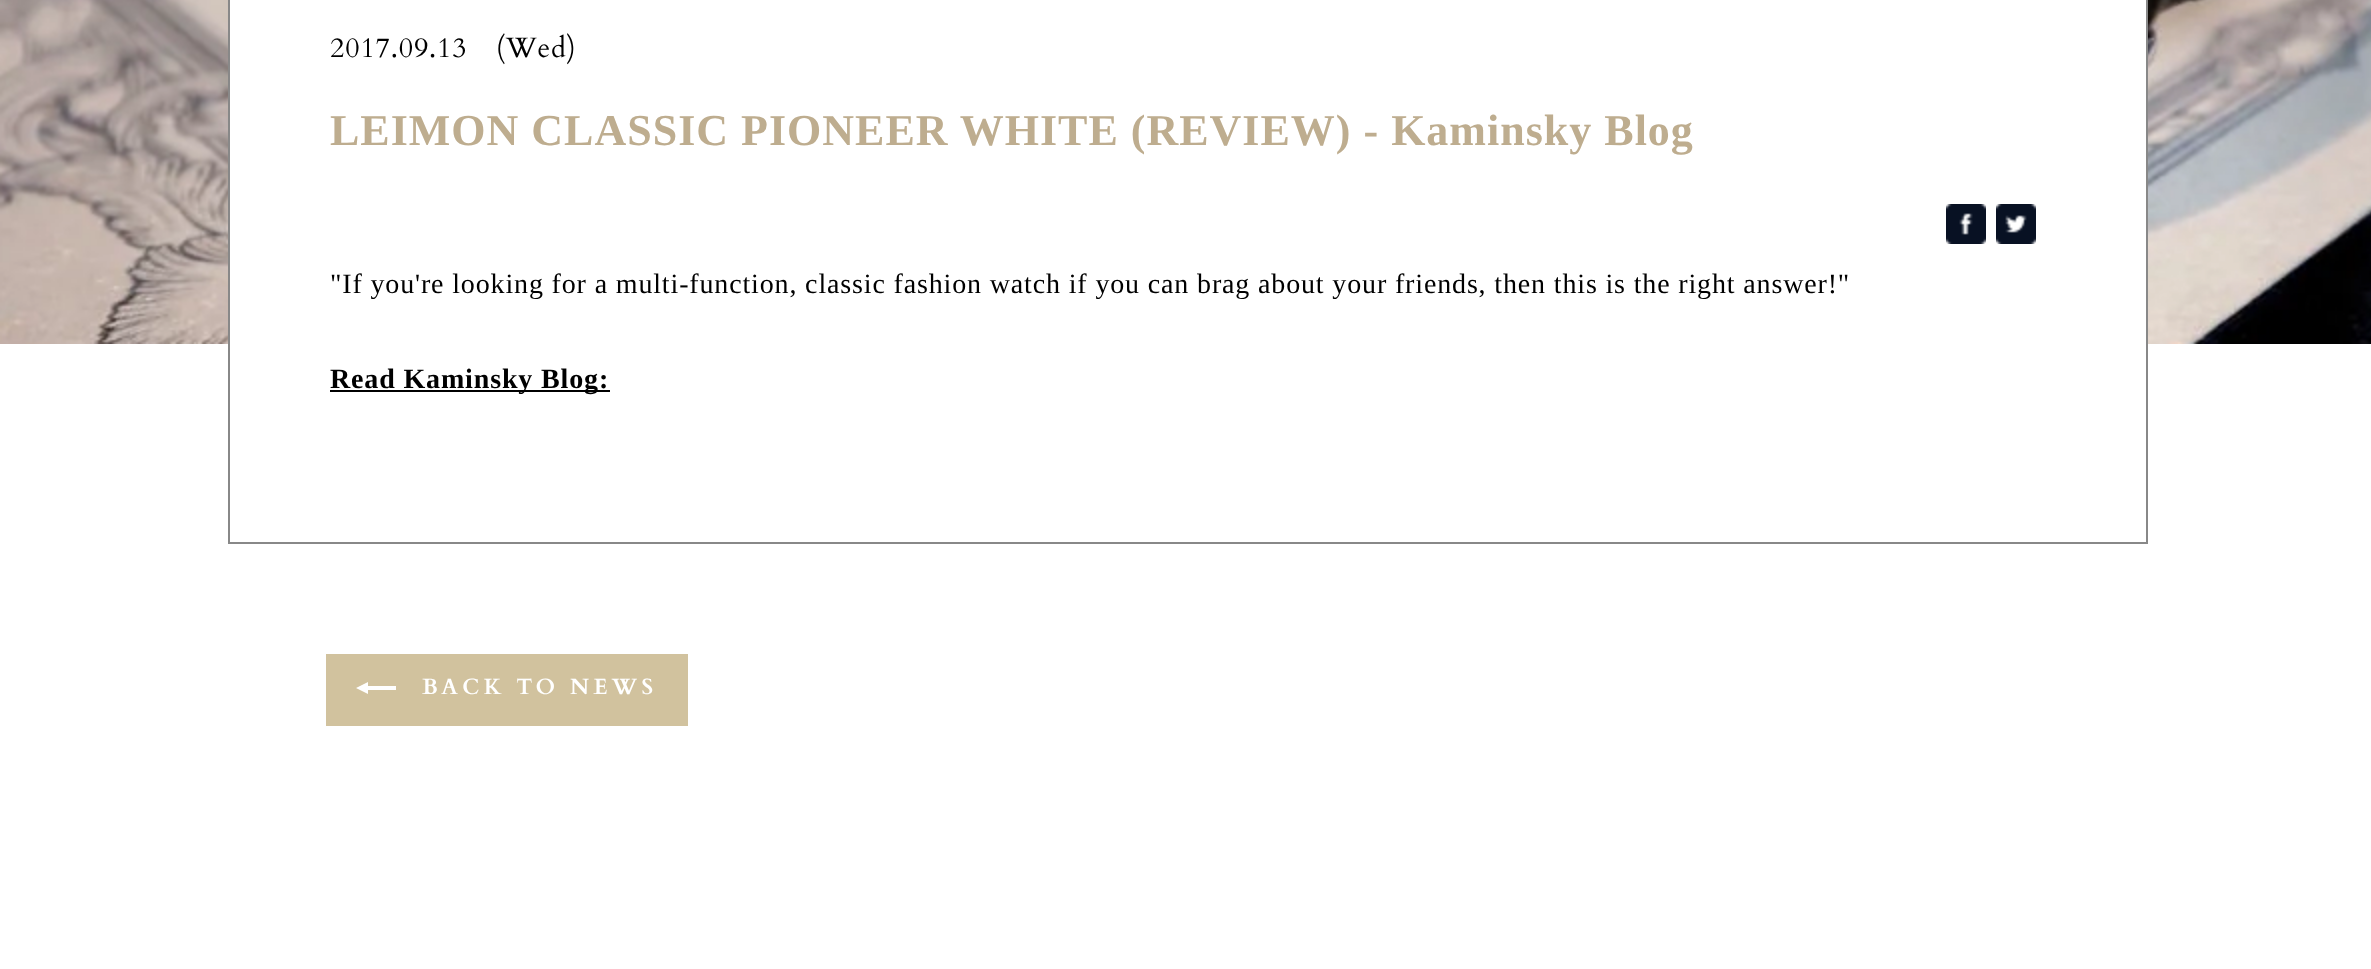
<svg xmlns="http://www.w3.org/2000/svg" width="2371" height="969" viewBox="0 0 2371 969">
  <rect width="100%" height="100%" fill="#fff"/>
  <image x="0" y="0" width="2371" height="344" href="img/1.png"/>
  <path d="M230 0h1916v344H230z" fill="#fff"/>
  <path d="M229 -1h1918v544H229z" fill="none" stroke="#888" stroke-width="2"/>
  <image x="1946" y="204" width="40" height="40" href="img/2.png"/>
  <image x="1996" y="204" width="40" height="40" href="img/3.png"/>
  <path d="M330 390h280v2H330z" fill="#000"/>
  <path d="M326 654h362v72H326z" fill="#d1c29e"/>
  <path d="M396 686V690H368V694L356 688L368 682V686Z" fill="#fff"/>
  <g font-family="Cardo" font-size="28" letter-spacing="0.85" fill="#000">
    <text x="330" y="57">2017.09.13</text>
    <text x="496" y="57">(Wed)</text>
  </g>
  <text x="330" y="145" font-family="Liberation Serif" font-size="44" font-weight="bold" letter-spacing="1" fill="#bead8f">LEIMON CLASSIC PIONEER WHITE (REVIEW) - Kaminsky Blog</text>
  <text x="330" y="293" font-family="Liberation Serif" font-size="28" letter-spacing="0.85" fill="#000">"If you're looking for a multi-function, classic fashion watch if you can brag about your friends, then this is the right answer!"</text>
  <text x="330" y="388" font-family="Liberation Serif" font-size="28" font-weight="bold" letter-spacing="0.85" fill="#000">Read Kaminsky Blog:</text>
  <text x="422" y="694" font-family="Cardo" font-size="22" font-weight="bold" letter-spacing="4.4" fill="#fff">BACK TO NEWS</text>
</svg>
